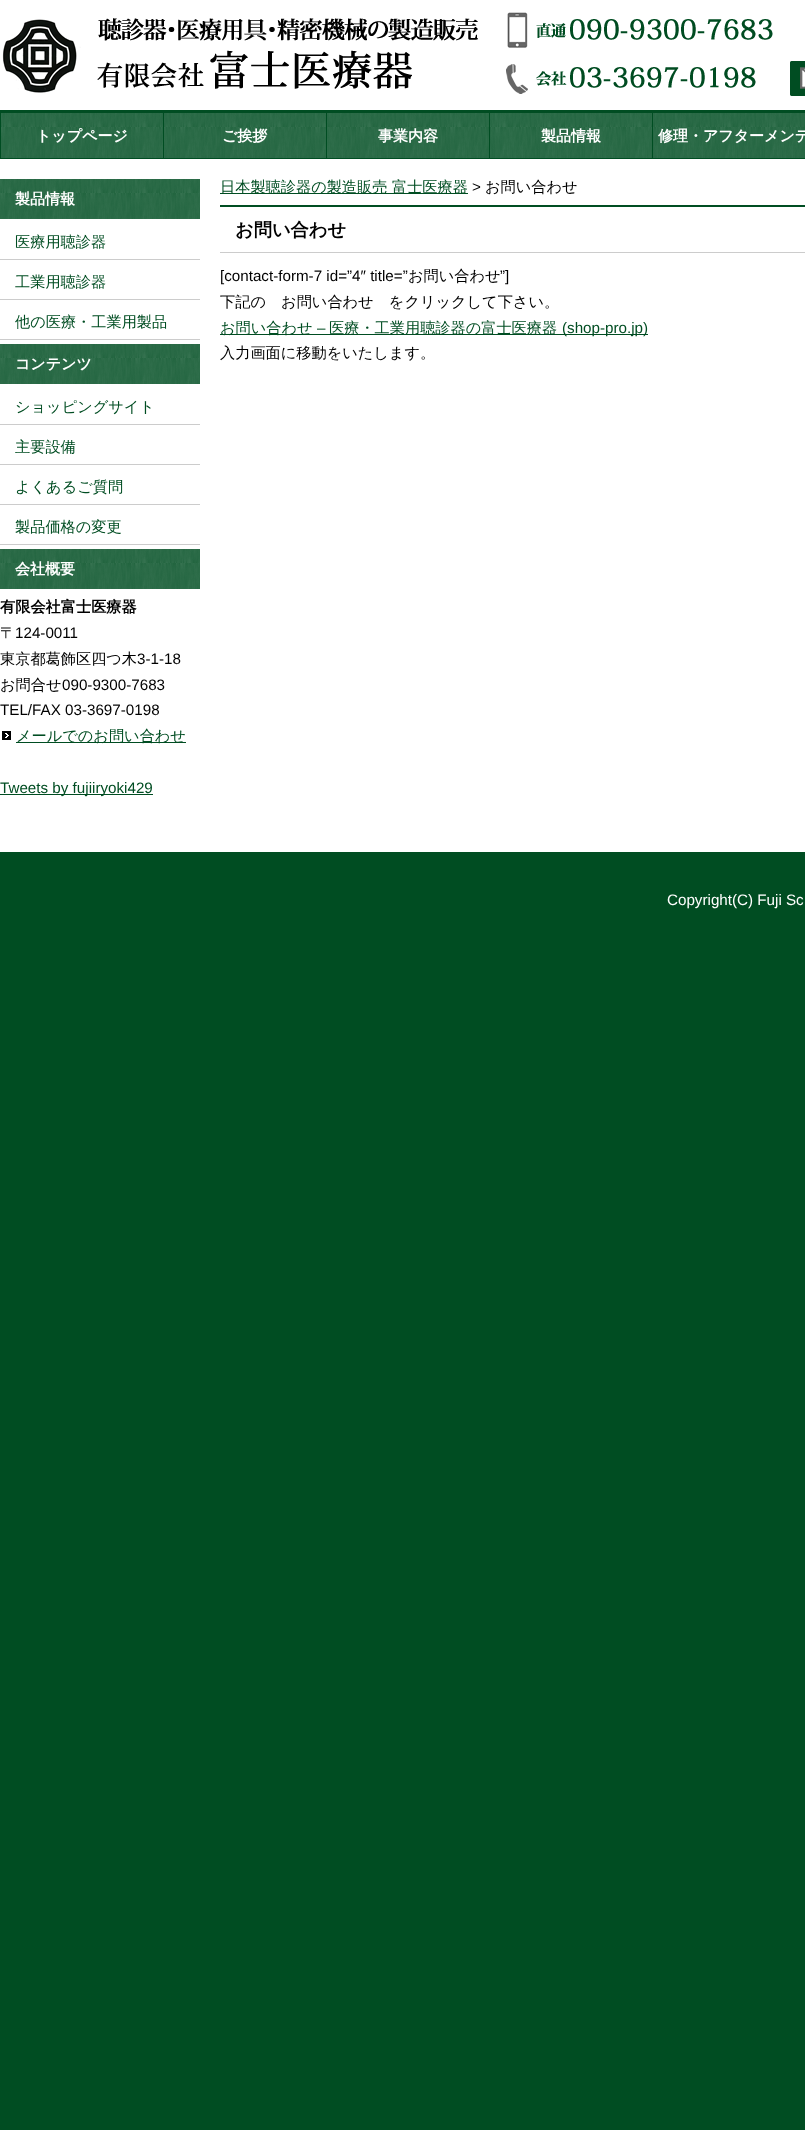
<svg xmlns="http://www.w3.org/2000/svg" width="805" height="2130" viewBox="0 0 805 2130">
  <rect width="100%" height="100%" fill="#004d22"/>
  <path d="M0 0h805v852H0z" fill="#fff"/>
  <path d="M0 110h805v3H0z" fill="#004d22"/>
  <image x="2" y="18" width="476" height="75" href="img/1.png"/>
  <image x="507" y="12" width="266" height="36" href="img/2.png"/>
  <image x="506" y="64" width="250" height="30" href="img/3.png"/>
  <image x="790" y="61" width="15" height="35" href="img/4.png"/>
  <image x="1" y="113" width="804" height="45" href="img/5.png"/>
  <path d="M0 158h805v1H0z" fill="#004d22"/>
  <path d="M0 113h1v45H0z" fill="#004d22"/>
  <path d="M163 113h1v45H163z" fill="#004d22"/>
  <path d="M326 113h1v45H326z" fill="#004d22"/>
  <path d="M489 113h1v45H489z" fill="#004d22"/>
  <path d="M652 113h1v45H652z" fill="#004d22"/>
  <image x="0" y="179" width="200" height="40" href="img/6.png"/>
  <path d="M0 259h200v1H0z" fill="#ccc"/>
  <path d="M0 299h200v1H0z" fill="#ccc"/>
  <path d="M0 339h200v1H0z" fill="#ccc"/>
  <image x="0" y="344" width="200" height="40" href="img/6.png"/>
  <path d="M0 424h200v1H0z" fill="#ccc"/>
  <path d="M0 464h200v1H0z" fill="#ccc"/>
  <path d="M0 504h200v1H0z" fill="#ccc"/>
  <path d="M0 544h200v1H0z" fill="#ccc"/>
  <image x="0" y="549" width="200" height="40" href="img/6.png"/>
  <image x="2" y="731" width="9" height="9" href="img/7.png"/>
  <path d="M16 742h170v1H16z" fill="#004d22"/>
  <path d="M0 794h153v1H0z" fill="#004d22"/>
  <path d="M220 193h248v1H220z" fill="#004d22"/>
  <path d="M220 205h585v2H220z" fill="#004d22"/>
  <path d="M220 252h585v1H220z" fill="#ccc"/>
  <path d="M220 334h428v1H220z" fill="#004d22"/>
  <g font-family="WenQuanYi Zen Hei" font-size="15" font-weight="bold" fill="#fff">
    <text x="36" y="141">トップページ</text>
    <text x="222" y="141">ご挨拶</text>
    <text x="378" y="141">事業内容</text>
    <text x="541" y="141">製品情報</text>
    <text x="658" y="141">修理・アフターメンテ</text>
    <text x="15" y="204">製品情報</text>
  </g>
  <g font-family="WenQuanYi Zen Hei" font-size="15.2" font-weight="500" fill="#004d22">
    <text x="15" y="247">医療用聴診器</text>
    <text x="15" y="287">工業用聴診器</text>
    <text x="15" y="327">他の医療・工業用製品</text>
  </g>
  <text x="15" y="369" font-family="WenQuanYi Zen Hei" font-size="15" font-weight="bold" fill="#fff">コンテンツ</text>
  <g font-family="WenQuanYi Zen Hei" font-size="15.2" font-weight="500" fill="#004d22">
    <text x="15" y="412">ショッピングサイト</text>
    <text x="15" y="452">主要設備</text>
    <text x="15" y="492">よくあるご質問</text>
    <text x="15" y="532">製品価格の変更</text>
  </g>
  <text x="15" y="574" font-family="WenQuanYi Zen Hei" font-size="15" font-weight="bold" fill="#fff">会社概要</text>
  <text x="0" y="612" font-family="WenQuanYi Zen Hei" font-size="15.2" font-weight="bold" fill="#000">有限会社富士医療器</text>
  <text x="0" y="638" font-family="WenQuanYi Zen Hei" font-size="15.2" font-weight="500" fill="#000">〒</text>
  <text x="15" y="638" font-family="Liberation Sans" font-size="15.2" fill="#000">124-0011</text>
  <text x="0" y="664" font-family="WenQuanYi Zen Hei" font-size="15.2" font-weight="500" fill="#000">東京都葛飾区四つ木</text>
  <text x="137" y="664" font-family="Liberation Sans" font-size="15.2" fill="#000">3-1-18</text>
  <text x="0" y="690" font-family="WenQuanYi Zen Hei" font-size="15.2" font-weight="500" fill="#000">お問合せ</text>
  <g font-family="Liberation Sans" font-size="15.2" fill="#000">
    <text x="62" y="690">090-9300-7683</text>
    <text x="0" y="715">TEL/FAX 03-3697-0198</text>
  </g>
  <text x="16" y="741" font-family="WenQuanYi Zen Hei" font-size="15.2" font-weight="500" fill="#004d22">メールでのお問い合わせ</text>
  <text x="0" y="793" font-family="Liberation Sans" font-size="15.2" fill="#004d22">Tweets by fujiiryoki429</text>
  <text x="220" y="192" font-family="WenQuanYi Zen Hei" font-size="15.2" font-weight="500" fill="#004d22">日本製聴診器の製造販売 富士医療器</text>
  <text x="472" y="192" font-family="Liberation Sans" font-size="15.2" fill="#000">&gt;</text>
  <text x="485" y="192" font-family="WenQuanYi Zen Hei" font-size="15.2" font-weight="500" fill="#000">お問い合わせ</text>
  <text x="235" y="236" font-family="WenQuanYi Zen Hei" font-size="18.25" font-weight="bold" fill="#000">お問い合わせ</text>
  <text x="220" y="281" font-family="Liberation Sans" font-size="15.2" fill="#000">[contact-form-7 id=”4″ title=”</text>
  <text x="408" y="281" font-family="WenQuanYi Zen Hei" font-size="15.2" font-weight="500" fill="#000">お問い合わせ</text>
  <text x="500" y="281" font-family="Liberation Sans" font-size="15.2" fill="#000">”]</text>
  <text x="220" y="307" font-family="WenQuanYi Zen Hei" font-size="15.2" font-weight="500" fill="#000">下記の　お問い合わせ　をクリックして下さい。</text>
  <text x="220" y="333" font-family="WenQuanYi Zen Hei" font-size="15.2" font-weight="500" fill="#004d22">お問い合わせ</text>
  <text x="317" y="333" font-family="Liberation Sans" font-size="15.2" fill="#004d22">–</text>
  <text x="329" y="333" font-family="WenQuanYi Zen Hei" font-size="15.2" font-weight="500" fill="#004d22">医療・工業用聴診器の富士医療器</text>
  <text x="562" y="333" font-family="Liberation Sans" font-size="15.2" fill="#004d22">(shop-pro.jp)</text>
  <text x="220" y="358" font-family="WenQuanYi Zen Hei" font-size="15.2" font-weight="500" fill="#000">入力画面に移動をいたします。</text>
  <text x="667" y="905" font-family="Liberation Sans" font-size="15.2" fill="#fff">Copyright(C) Fuji Sc</text>
</svg>
